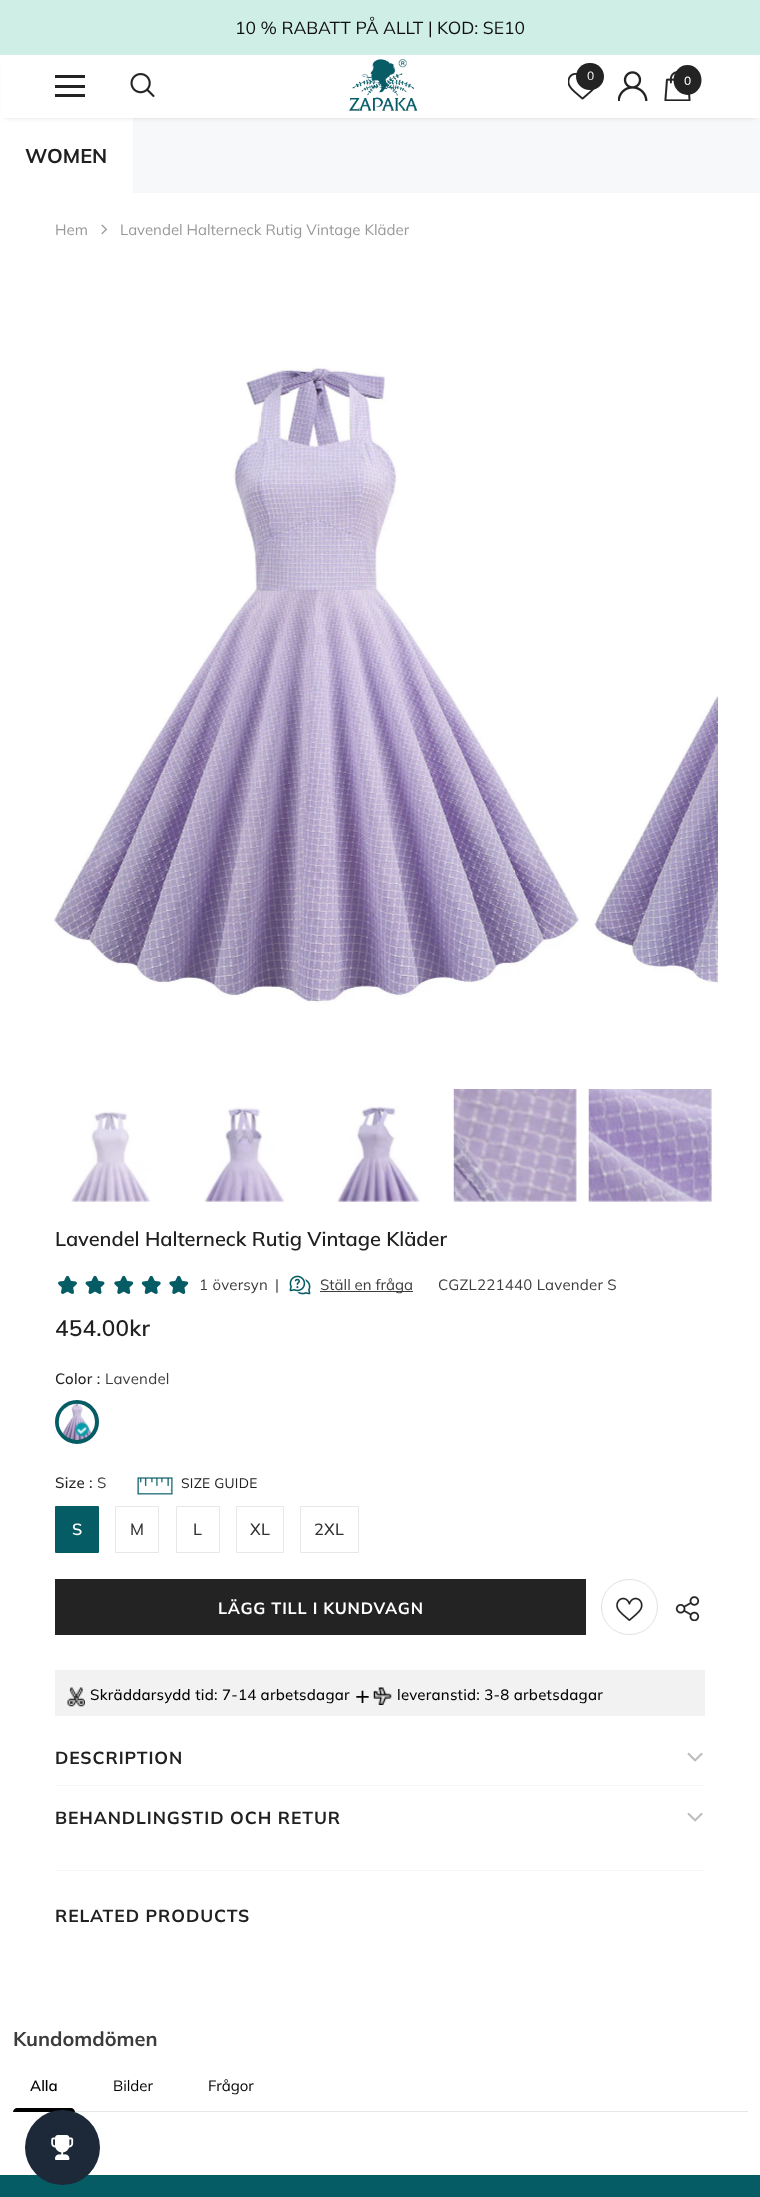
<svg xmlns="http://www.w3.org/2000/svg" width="760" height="2197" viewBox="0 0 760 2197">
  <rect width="100%" height="100%" fill="#fff"/>
  <path d="M0 0h760v55H0z" fill="#cfeee6"/>
  <path d="M133 118h627v75H133z" fill="#f7f8fa"/>
  <path d="M4 63h752v55H4z" fill="#0000001f" filter="blur(2px)"/>
  <path d="M1 60h758v58H1z" fill="#fff"/>
  <path d="M55 75h30v3H55z" fill="#232323"/>
  <path d="M55 85h30v3H55z" fill="#232323"/>
  <path d="M55 94h30v3H55z" fill="#232323"/>
  <image x="130" y="73" width="25" height="24" href="img/1.png"/>
  <image x="348" y="59" width="70" height="52" href="img/2.png"/>
  <image x="568" y="72" width="28" height="28" href="img/3.png"/>
  <rect x="576" y="63" width="28" height="27" rx="13.5" fill="#232323"/>
  <image x="618" y="71" width="30" height="30" href="img/4.png"/>
  <image x="664" y="71" width="27" height="30" href="img/5.png"/>
  <ellipse cx="687.5" cy="80" rx="14" ry="15" fill="#232323"/>
  <image x="101" y="224" width="6" height="11" href="img/6.png"/>
  <image x="53" y="367" width="527" height="637" href="img/7.png"/>
  <image x="593" y="696" width="125" height="287" href="img/8.png"/>
  <image x="71" y="1111" width="80" height="91" href="img/9.png"/>
  <image x="204" y="1107" width="81" height="95" href="img/10.png"/>
  <image x="337" y="1106" width="83" height="96" href="img/11.png"/>
  <image x="453" y="1089" width="124" height="113" href="img/12.png"/>
  <image x="588" y="1089" width="124" height="113" href="img/13.png"/>
  <image x="58" y="1275" width="19" height="19" href="img/14.png"/>
  <image x="85" y="1275" width="20" height="19" href="img/15.png"/>
  <image x="114" y="1275" width="20" height="19" href="img/16.png"/>
  <image x="141" y="1275" width="20" height="19" href="img/17.png"/>
  <image x="169" y="1275" width="20" height="19" href="img/16.png"/>
  <image x="289" y="1275" width="22" height="20" href="img/18.png"/>
  <path d="M320 1291h93v1H320z" fill="#3c3c3c"/>
  <circle cx="77" cy="1422" r="20" fill="#065c65" stroke="#065c65" stroke-width="4"/>
  <image x="58" y="1403" width="37" height="37" href="img/19.png"/>
  <image x="75" y="1422" width="14" height="15" href="img/20.png"/>
  <image x="137" y="1477" width="36" height="18" href="img/21.png"/>
  <path d="M56 1507h42v45H56z" fill="#065c65"/>
  <path d="M55.5 1506.5h43v46H55.5z" fill="none" stroke="#065c65"/>
  <path d="M115.5 1506.5h43v46H115.5z" fill="none" stroke="#e7e7e7"/>
  <path d="M176.5 1506.5h43v46H176.5z" fill="none" stroke="#e7e7e7"/>
  <path d="M236.5 1506.5h47v46H236.5z" fill="none" stroke="#e7e7e7"/>
  <path d="M300.5 1506.5h58v46H300.5z" fill="none" stroke="#e7e7e7"/>
  <path d="M55 1579h531v56H55z" fill="#232323"/>
  <rect x="601.5" y="1579.5" width="56" height="55" rx="27.5" fill="none" stroke="#e1e1e1"/>
  <image x="616" y="1597" width="27" height="24" href="img/22.png"/>
  <image x="675" y="1596" width="25" height="25" href="img/23.png"/>
  <path d="M55 1670h650v46H55z" fill="#f2f2f2"/>
  <image x="67" y="1687" width="18" height="20" href="img/24.png"/>
  <image x="373" y="1687" width="19" height="18" href="img/25.png"/>
  <image x="687" y="1752" width="16" height="10" href="img/26.png"/>
  <path d="M55 1785h650v1H55z" fill="#f6f6f6"/>
  <image x="687" y="1812" width="16" height="10" href="img/26.png"/>
  <path d="M55 1870h650v1H55z" fill="#f6f6f6"/>
  <path d="M13 2111h735v1H13z" fill="#e5e7eb"/>
  <path d="M17 2108H71C73 2108 75 2110 75 2112H13C13 2110 15 2108 17 2108Z" fill="#000"/>
  <path d="M0 2175h760v22H0z" fill="#065c65"/>
  <circle cx="62.5" cy="2147.5" r="37.5" fill="#1d2939"/>
  <image x="51" y="2135" width="23" height="25" href="img/27.png"/>
  <text x="235" y="34" font-family="Muli" font-size="17.5" fill="#0f0f0f">10 % RABATT PÅ ALLT | KOD: SE10</text>
  <text x="587" y="80" font-family="Muli" font-size="12" fill="#fff">0</text>
  <text x="684" y="85" font-family="Muli" font-size="12" font-weight="500" fill="#fff">0</text>
  <text x="25" y="163" font-family="Muli" font-size="20" font-weight="bold" fill="#202020">WOMEN</text>
  <g font-family="Muli" font-size="15" fill="#999">
    <text x="55" y="235">Hem</text>
    <text x="120" y="235">Lavendel Halterneck Rutig Vintage Kläder</text>
  </g>
  <text x="55" y="1246" font-family="Muli" font-size="20" font-weight="600" fill="#202020">Lavendel Halterneck Rutig Vintage Kläder</text>
  <g font-family="Muli" font-size="15" letter-spacing="0.25" fill="#3c3c3c">
    <text x="199" y="1290">1 översyn</text>
    <text x="275" y="1290">|</text>
  </g>
  <text x="320" y="1290" font-family="Muli" font-size="15" fill="#3c3c3c">Ställ en fråga</text>
  <text x="438" y="1290" font-family="Muli" font-size="15" letter-spacing="0.25" fill="#3c3c3c">CGZL221440 Lavender S</text>
  <text x="55" y="1336" font-family="Muli" font-size="22.5" font-weight="600" letter-spacing="0.25" fill="#202020">454.00kr</text>
  <text x="55" y="1384" font-family="Muli" font-size="15" font-weight="500" letter-spacing="0.25" fill="#202020">Color :</text>
  <text x="105" y="1384" font-family="Muli" font-size="15" letter-spacing="0.25" fill="#3c3c3c">Lavendel</text>
  <text x="55" y="1488" font-family="Muli" font-size="15" font-weight="500" letter-spacing="0.25" fill="#202020">Size :</text>
  <text x="97" y="1488" font-family="Muli" font-size="15" letter-spacing="0.25" fill="#3c3c3c">S</text>
  <text x="181" y="1488" font-family="Muli" font-size="13.75" letter-spacing="0.25" fill="#202020">SIZE GUIDE</text>
  <text x="72" y="1535" font-family="Muli" font-size="16.25" font-weight="600" letter-spacing="0.25" fill="#fff">S</text>
  <g font-family="Muli" font-size="16.25" font-weight="500" letter-spacing="0.25" fill="#323232">
    <text x="130" y="1535">M</text>
    <text x="193" y="1535">L</text>
    <text x="250" y="1535">XL</text>
    <text x="314" y="1535">2XL</text>
  </g>
  <text x="218" y="1614" font-family="Muli" font-size="16.25" font-weight="bold" letter-spacing="0.8" fill="#fff">LÄGG TILL I KUNDVAGN</text>
  <text x="90" y="1700" font-family="Muli" font-size="15" font-weight="500" letter-spacing="0.25" fill="#000">Skräddarsydd tid: 7-14 arbetsdagar</text>
  <text x="355" y="1704" font-family="Muli" font-size="25" font-weight="500" letter-spacing="0.25" fill="#000">+</text>
  <text x="397" y="1700" font-family="Muli" font-size="15" font-weight="500" letter-spacing="0.25" fill="#000">leveranstid: 3-8 arbetsdagar</text>
  <g font-family="Muli" font-size="17.5" font-weight="bold" letter-spacing="0.9" fill="#202020">
    <text x="55" y="1764">DESCRIPTION</text>
    <text x="55" y="1824">BEHANDLINGSTID OCH RETUR</text>
    <text x="55" y="1922">RELATED PRODUCTS</text>
  </g>
  <text x="13" y="2046" font-family="Muli" font-size="20" font-weight="bold" fill="#3c3c3c">Kundomdömen</text>
  <text x="30" y="2091" font-family="Muli" font-size="15" font-weight="600" fill="#000">Alla</text>
  <g font-family="Muli" font-size="15" fill="#000">
    <text x="113" y="2091">Bilder</text>
    <text x="208" y="2091">Frågor</text>
  </g>
</svg>
